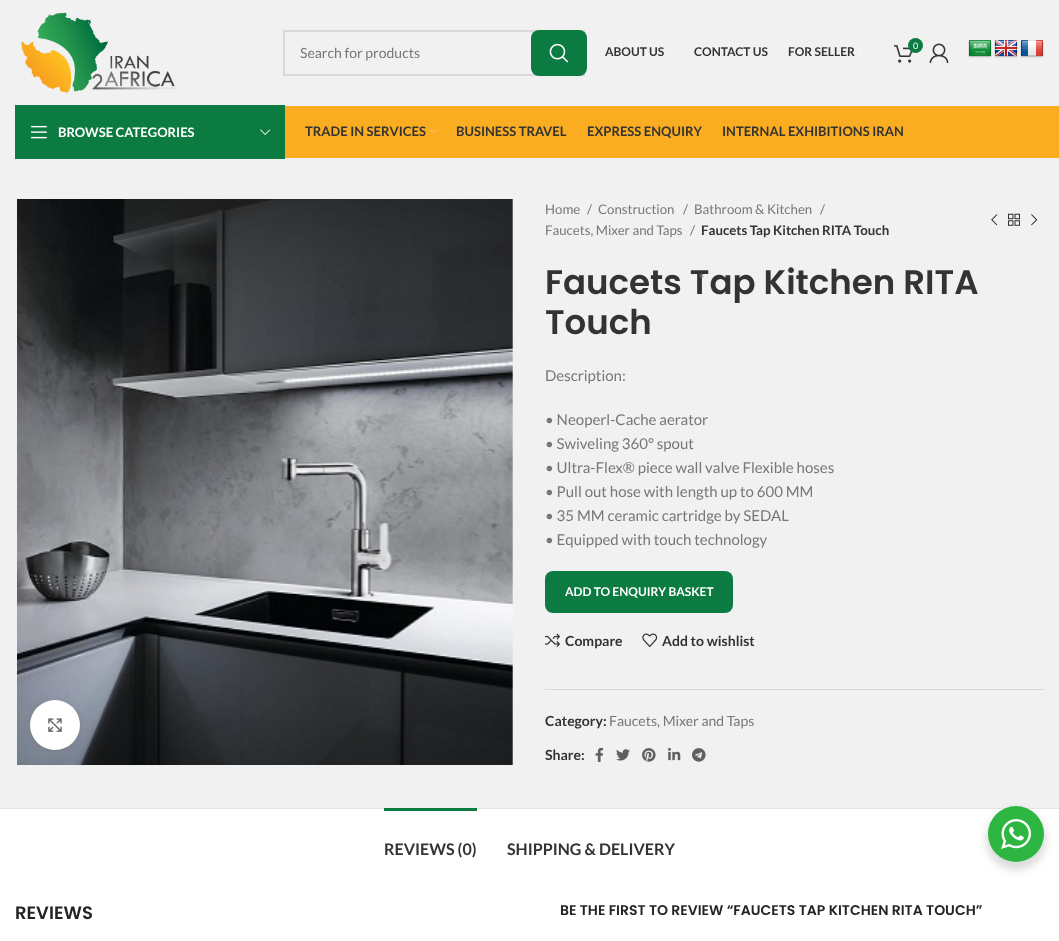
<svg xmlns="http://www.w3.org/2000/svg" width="1059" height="941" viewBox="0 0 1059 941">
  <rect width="100%" height="100%" fill="#f1f1f1"/>
  <image x="21" y="12" width="155" height="81" href="img/1.png"/>
  <path d="M284 31h300v44H284z" fill="none" stroke="#d9d9d9" stroke-width="2"/>
  <rect x="531" y="30" width="56" height="46" rx="8" fill="#0b7b42"/>
  <image x="549" y="43" width="20" height="20" href="img/2.png"/>
  <image x="894" y="45" width="19" height="18" href="img/3.png"/>
  <circle cx="915.5" cy="45.5" r="7.5" fill="#0b7b42"/>
  <image x="968" y="40" width="24" height="18" href="img/4.png"/>
  <image x="994" y="40" width="24" height="18" href="img/5.png"/>
  <image x="1020" y="40" width="24" height="18" href="img/6.png"/>
  <path d="M668 51h3v3H668z" fill="#f5f5f5"/>
  <path d="M859 51h3v3H859z" fill="#f5f5f5"/>
  <image x="929" y="43" width="20" height="20" href="img/7.png"/>
  <path d="M285 106h774v52H285z" fill="#faad21"/>
  <path d="M15 105h270v54H15z" fill="#0b7b42"/>
  <image x="31" y="125" width="16" height="14" href="img/8.png"/>
  <image x="260" y="129" width="11" height="6" href="img/9.png"/>
  <image x="430" y="129" width="6" height="4" href="img/10.png"/>
  <image x="17" y="199" width="496" height="566" href="img/11.png"/>
  <rect x="30" y="700" width="50" height="50" rx="25" fill="#00000014" filter="blur(2.5px)"/>
  <circle cx="55" cy="725" r="25" fill="#fff"/>
  <image x="48" y="718" width="14" height="14" href="img/12.png"/>
  <image x="991" y="214" width="7" height="12" href="img/13.png"/>
  <image x="1008" y="213" width="12" height="13" href="img/14.png"/>
  <image x="1031" y="214" width="7" height="12" href="img/15.png"/>
  <rect x="545" y="571" width="188" height="42" rx="8" fill="#0b7b42"/>
  <image x="545" y="633" width="15" height="14" href="img/16.png"/>
  <image x="642" y="633" width="16" height="14" href="img/17.png"/>
  <path d="M545 689h499v1H545z" fill="#d7d7d7"/>
  <image x="595" y="747" width="9" height="15" href="img/18.png"/>
  <image x="616" y="749" width="14" height="12" href="img/19.png"/>
  <image x="642" y="748" width="14" height="14" href="img/20.png"/>
  <image x="668" y="747" width="13" height="14" href="img/21.png"/>
  <image x="692" y="748" width="14" height="14" href="img/22.png"/>
  <path d="M0 809h1059v132H0z" fill="#fff"/>
  <path d="M0 808h1059v1H0z" fill="#e4e4e4"/>
  <path d="M384 808h93v3H384z" fill="#0b7b42"/>
  <rect x="986" y="810" width="60" height="60" rx="30" fill="#00000024" filter="blur(4px)"/>
  <circle cx="1016" cy="834" r="28" fill="#2db742"/>
  <image x="1001" y="819" width="30" height="30" href="img/23.png"/>
  <text x="300" y="58" font-family="Lato" font-size="14" fill="#777">Search for products</text>
  <text x="913" y="49" font-family="Lato" font-size="9" fill="#fff">0</text>
  <g font-family="Lato" font-size="12" font-weight="bold" fill="#333">
    <text x="605" y="56">ABOUT US</text>
    <text x="694" y="56">CONTACT US</text>
    <text x="788" y="56">FOR SELLER</text>
  </g>
  <text x="58" y="137" font-family="Lato" font-size="13" font-weight="bold" fill="#fff">BROWSE CATEGORIES</text>
  <g font-family="Lato" font-size="13" font-weight="bold" fill="#333">
    <text x="305" y="136">TRADE IN SERVICES</text>
    <text x="456" y="136">BUSINESS TRAVEL</text>
    <text x="587" y="136">EXPRESS ENQUIRY</text>
    <text x="722" y="136">INTERNAL EXHIBITIONS IRAN</text>
  </g>
  <g font-family="Lato" font-size="13.25" fill="#777">
    <text x="545" y="214">Home</text>
    <text x="587" y="214">/</text>
    <text x="598" y="214">Construction</text>
    <text x="683" y="214">/</text>
    <text x="694" y="214">Bathroom &amp; Kitchen</text>
    <text x="820" y="214">/</text>
    <text x="545" y="235">Faucets, Mixer and Taps</text>
    <text x="690" y="235">/</text>
  </g>
  <text x="701" y="235" font-family="Lato" font-size="13.25" font-weight="bold" fill="#333">Faucets Tap Kitchen RITA Touch</text>
  <text x="545" y="294" font-family="Poppins" font-size="34" font-weight="600" fill="#333">Faucets Tap Kitchen RITA</text>
  <text x="698" y="285" font-family="Lato" font-size="16" fill="#6d6d6d">*</text>
  <text x="545" y="334" font-family="Poppins" font-size="34" font-weight="600" fill="#333">Touch</text>
  <g font-family="Lato" font-size="15" fill="#777">
    <text x="545" y="381">Description:</text>
    <text x="545" y="425">• Neoperl-Cache aerator</text>
    <text x="545" y="449">• Swiveling 360° spout</text>
    <text x="545" y="473">• Ultra-Flex® piece wall valve Flexible hoses</text>
    <text x="545" y="497">• Pull out hose with length up to 600 MM</text>
    <text x="545" y="521">• 35 MM ceramic cartridge by SEDAL</text>
    <text x="545" y="545">• Equipped with touch technology</text>
  </g>
  <text x="565" y="596" font-family="Lato" font-size="12" font-weight="bold" fill="#fff">ADD TO ENQUIRY BASKET</text>
  <g font-family="Lato" font-size="14" font-weight="bold" fill="#333">
    <text x="565" y="646">Compare</text>
    <text x="662" y="646">Add to wishlist</text>
    <text x="545" y="726">Category:</text>
  </g>
  <text x="609" y="726" font-family="Lato" font-size="14" fill="#777">Faucets, Mixer and Taps</text>
  <text x="545" y="760" font-family="Lato" font-size="14" font-weight="bold" fill="#333">Share:</text>
  <g font-family="Lato" font-size="16" font-weight="bold" fill="#333">
    <text x="384" y="855">REVIEWS (0)</text>
    <text x="507" y="855">SHIPPING &amp; DELIVERY</text>
  </g>
  <text x="15" y="919" font-family="Poppins" font-size="18" font-weight="600" fill="#242424">REVIEWS</text>
  <text x="560" y="915" font-family="Poppins" font-size="14" font-weight="600" fill="#242424">BE THE FIRST TO REVIEW “FAUCETS TAP KITCHEN RITA TOUCH”</text>
</svg>
